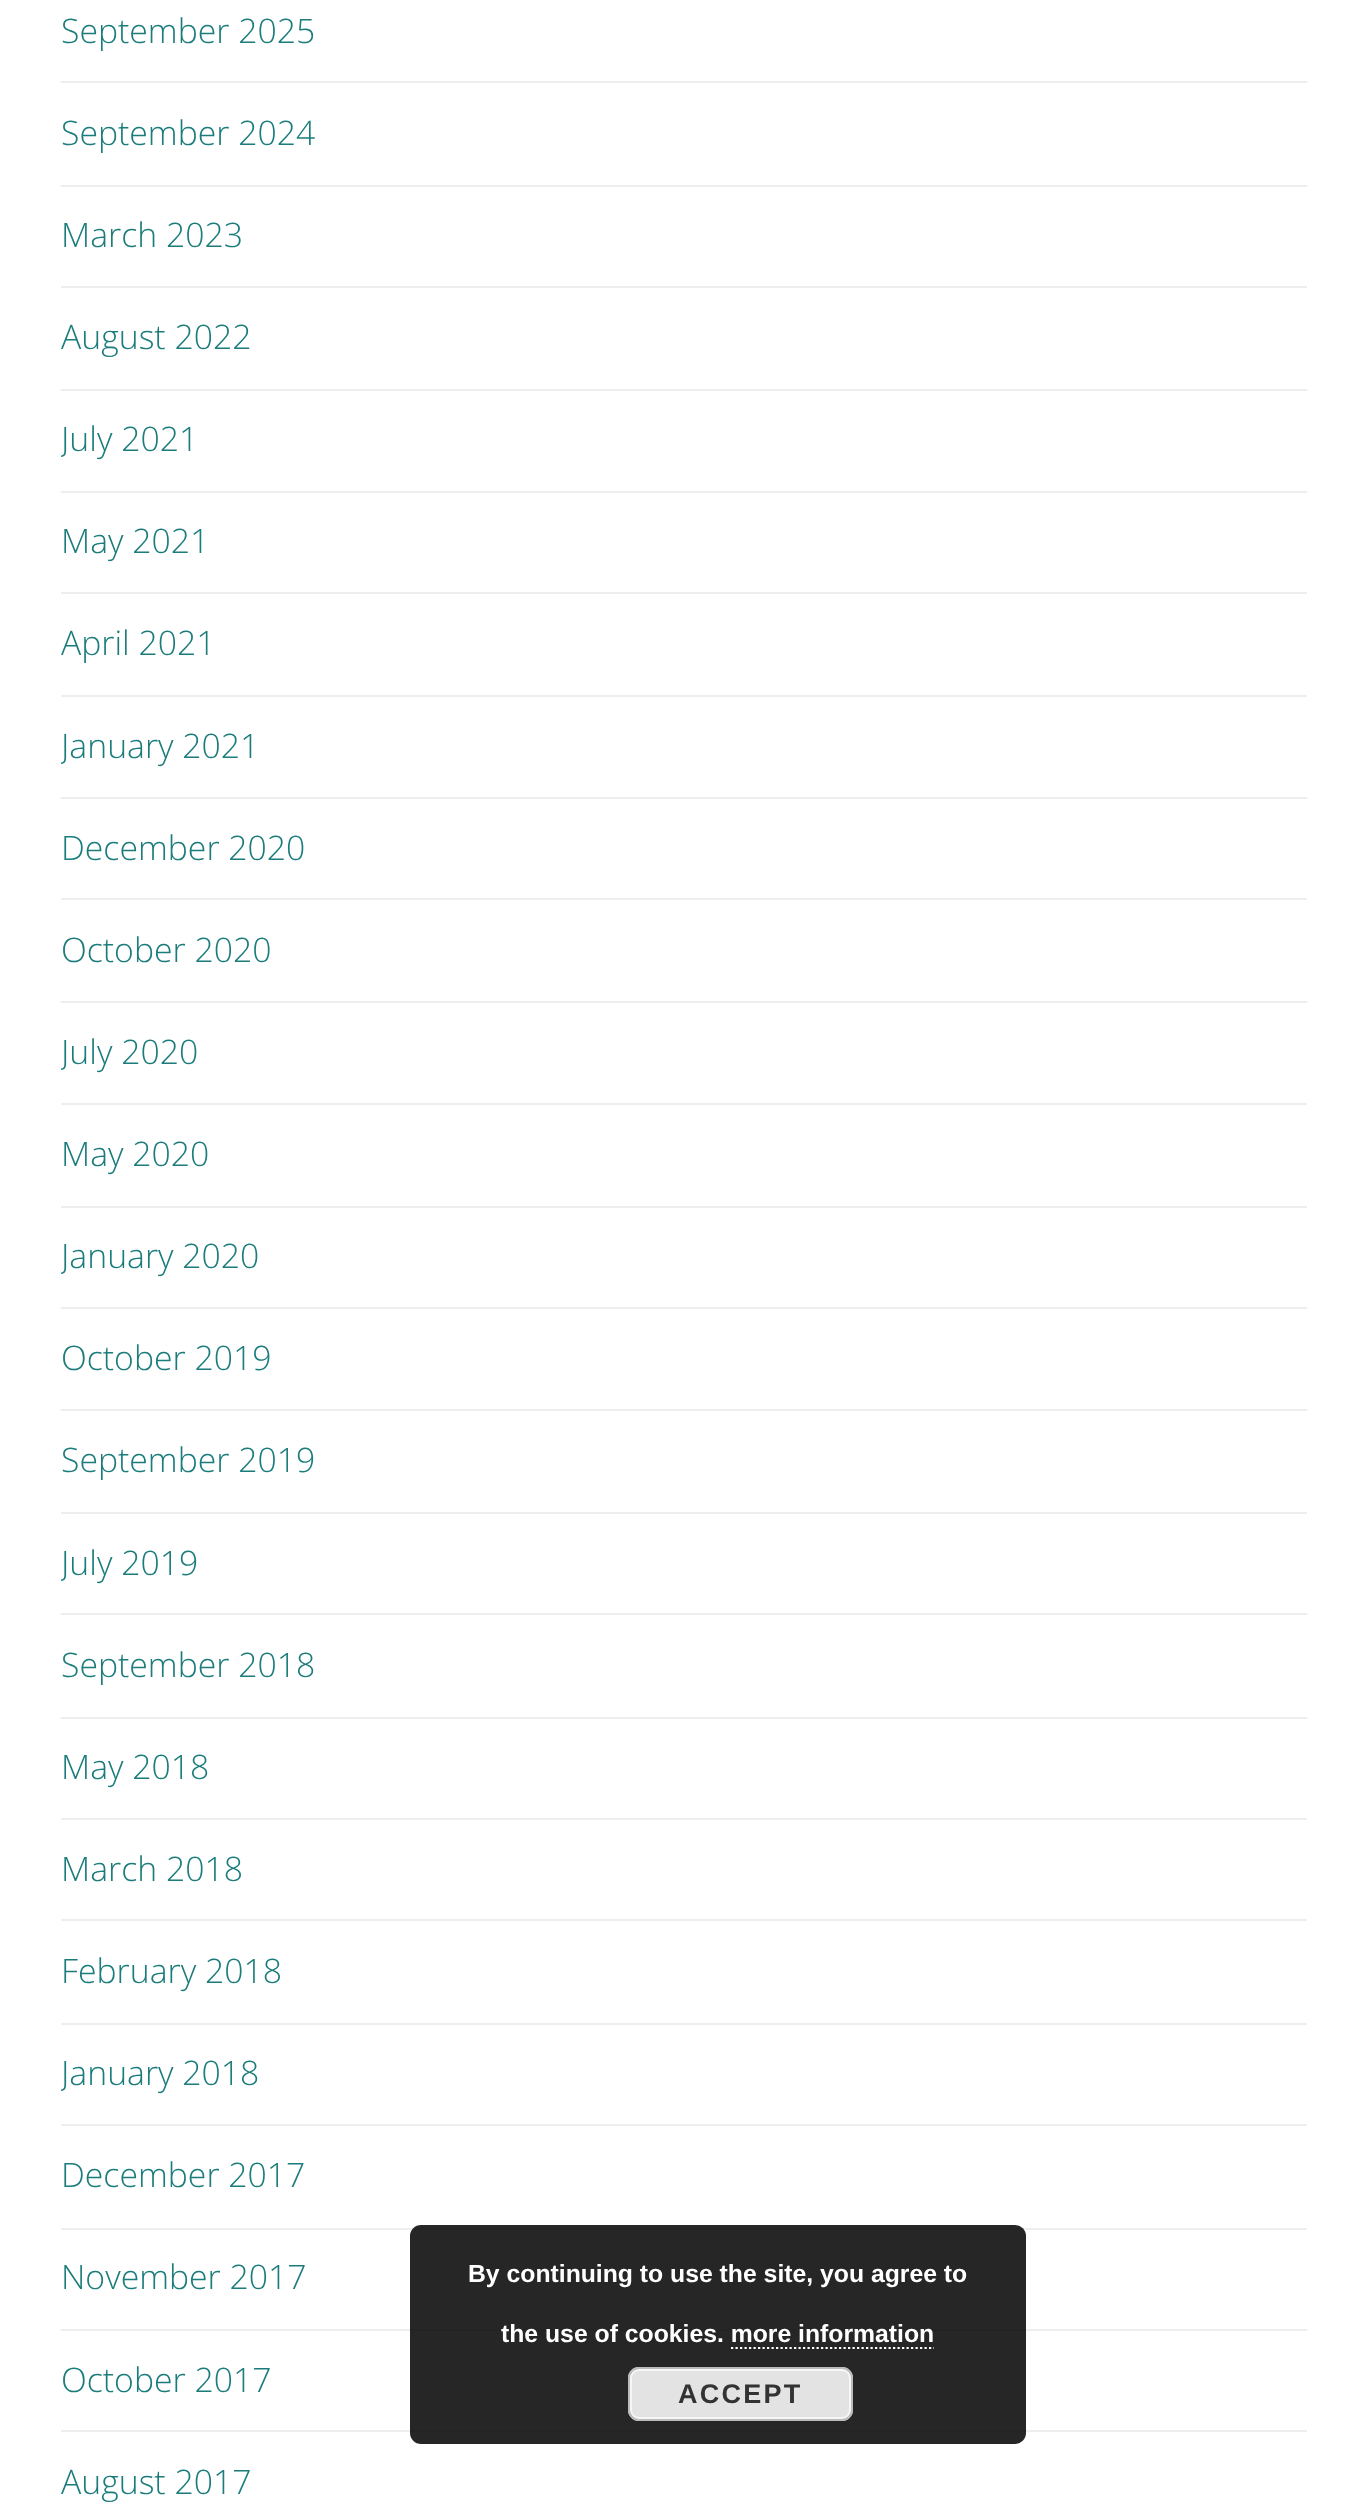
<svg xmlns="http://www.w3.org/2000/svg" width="1367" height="2509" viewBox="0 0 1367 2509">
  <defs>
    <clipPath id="clip1"><path d="M61 0h1246v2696H61z"/></clipPath>
  </defs>
  <rect width="100%" height="100%" fill="#fff"/>
  <path d="M61 81h1246v2H61z" fill="#eee"/>
  <path d="M61 185h1246v2H61z" fill="#eee"/>
  <path d="M61 286h1246v2H61z" fill="#eee"/>
  <path d="M61 389h1246v2H61z" fill="#eee"/>
  <path d="M61 491h1246v2H61z" fill="#eee"/>
  <path d="M61 592h1246v2H61z" fill="#eee"/>
  <path d="M61 695h1246v2H61z" fill="#eee"/>
  <path d="M61 797h1246v2H61z" fill="#eee"/>
  <path d="M61 898h1246v2H61z" fill="#eee"/>
  <path d="M61 1001h1246v2H61z" fill="#eee"/>
  <path d="M61 1103h1246v2H61z" fill="#eee"/>
  <path d="M61 1206h1246v2H61z" fill="#eee"/>
  <path d="M61 1307h1246v2H61z" fill="#eee"/>
  <path d="M61 1409h1246v2H61z" fill="#eee"/>
  <path d="M61 1512h1246v2H61z" fill="#eee"/>
  <path d="M61 1613h1246v2H61z" fill="#eee"/>
  <path d="M61 1717h1246v2H61z" fill="#eee"/>
  <path d="M61 1818h1246v2H61z" fill="#eee"/>
  <path d="M61 1919h1246v2H61z" fill="#eee"/>
  <path d="M61 2023h1246v2H61z" fill="#eee"/>
  <path d="M61 2124h1246v2H61z" fill="#eee"/>
  <path d="M61 2228h1246v2H61z" fill="#eee"/>
  <path d="M61 2329h1246v2H61z" fill="#eee"/>
  <path d="M61 2430h1246v2H61z" fill="#eee"/>
  <rect x="410" y="2225" width="616" height="219" rx="11" fill="#000000d9"/>
  <path d="M731 2348H934" fill="none" stroke="#fff" stroke-width="2.2" stroke-dasharray="2.25 2.25"/>
  <rect x="628" y="2367" width="225" height="54" rx="11" fill="#e3e3e3"/>
  <rect x="631" y="2370" width="219" height="48" rx="8" fill="none" stroke="#f6f6f6" stroke-width="2"/>
  <rect x="629" y="2368" width="223" height="52" rx="10" fill="none" stroke="#bbb" stroke-width="2"/>
  <g font-family="Open Sans" font-size="33.75" font-weight="300" fill="#1c7c7c">
    <text x="61" y="43">September 2025</text>
    <text x="61" y="145">September 2024</text>
    <text x="61" y="247">March 2023</text>
    <text x="61" y="349">August 2022</text>
  </g>
  <g clip-path="url(#clip1)">
    <text x="61" y="451" font-family="Open Sans" font-size="33.75" font-weight="300" fill="#1c7c7c">July 2021</text>
  </g>
  <g font-family="Open Sans" font-size="33.75" font-weight="300" fill="#1c7c7c">
    <text x="61" y="553">May 2021</text>
    <text x="61" y="655">April 2021</text>
  </g>
  <g clip-path="url(#clip1)">
    <text x="61" y="758" font-family="Open Sans" font-size="33.75" font-weight="300" fill="#1c7c7c">January 2021</text>
  </g>
  <g font-family="Open Sans" font-size="33.75" font-weight="300" fill="#1c7c7c">
    <text x="61" y="860">December 2020</text>
    <text x="61" y="962">October 2020</text>
  </g>
  <g clip-path="url(#clip1)">
    <text x="61" y="1064" font-family="Open Sans" font-size="33.75" font-weight="300" fill="#1c7c7c">July 2020</text>
  </g>
  <text x="61" y="1166" font-family="Open Sans" font-size="33.75" font-weight="300" fill="#1c7c7c">May 2020</text>
  <g clip-path="url(#clip1)">
    <text x="61" y="1268" font-family="Open Sans" font-size="33.75" font-weight="300" fill="#1c7c7c">January 2020</text>
  </g>
  <g font-family="Open Sans" font-size="33.75" font-weight="300" fill="#1c7c7c">
    <text x="61" y="1370">October 2019</text>
    <text x="61" y="1472">September 2019</text>
  </g>
  <g clip-path="url(#clip1)">
    <text x="61" y="1575" font-family="Open Sans" font-size="33.75" font-weight="300" fill="#1c7c7c">July 2019</text>
  </g>
  <g font-family="Open Sans" font-size="33.75" font-weight="300" fill="#1c7c7c">
    <text x="61" y="1677">September 2018</text>
    <text x="61" y="1779">May 2018</text>
    <text x="61" y="1881">March 2018</text>
    <text x="61" y="1983">February 2018</text>
  </g>
  <g clip-path="url(#clip1)">
    <text x="61" y="2085" font-family="Open Sans" font-size="33.75" font-weight="300" fill="#1c7c7c">January 2018</text>
  </g>
  <g font-family="Open Sans" font-size="33.75" font-weight="300" fill="#1c7c7c">
    <text x="61" y="2187">December 2017</text>
    <text x="61" y="2289">November 2017</text>
    <text x="61" y="2392">October 2017</text>
    <text x="61" y="2494">August 2017</text>
  </g>
  <g font-family="Liberation Sans" font-size="24.75" font-weight="bold" fill="#fff">
    <text x="468" y="2282">By continuing to use the site, you agree to</text>
    <text x="501" y="2342">the use of cookies. more information</text>
  </g>
  <text x="678" y="2403" font-family="Liberation Sans" font-size="27" font-weight="bold" letter-spacing="2.25" fill="#333">ACCEPT</text>
</svg>
